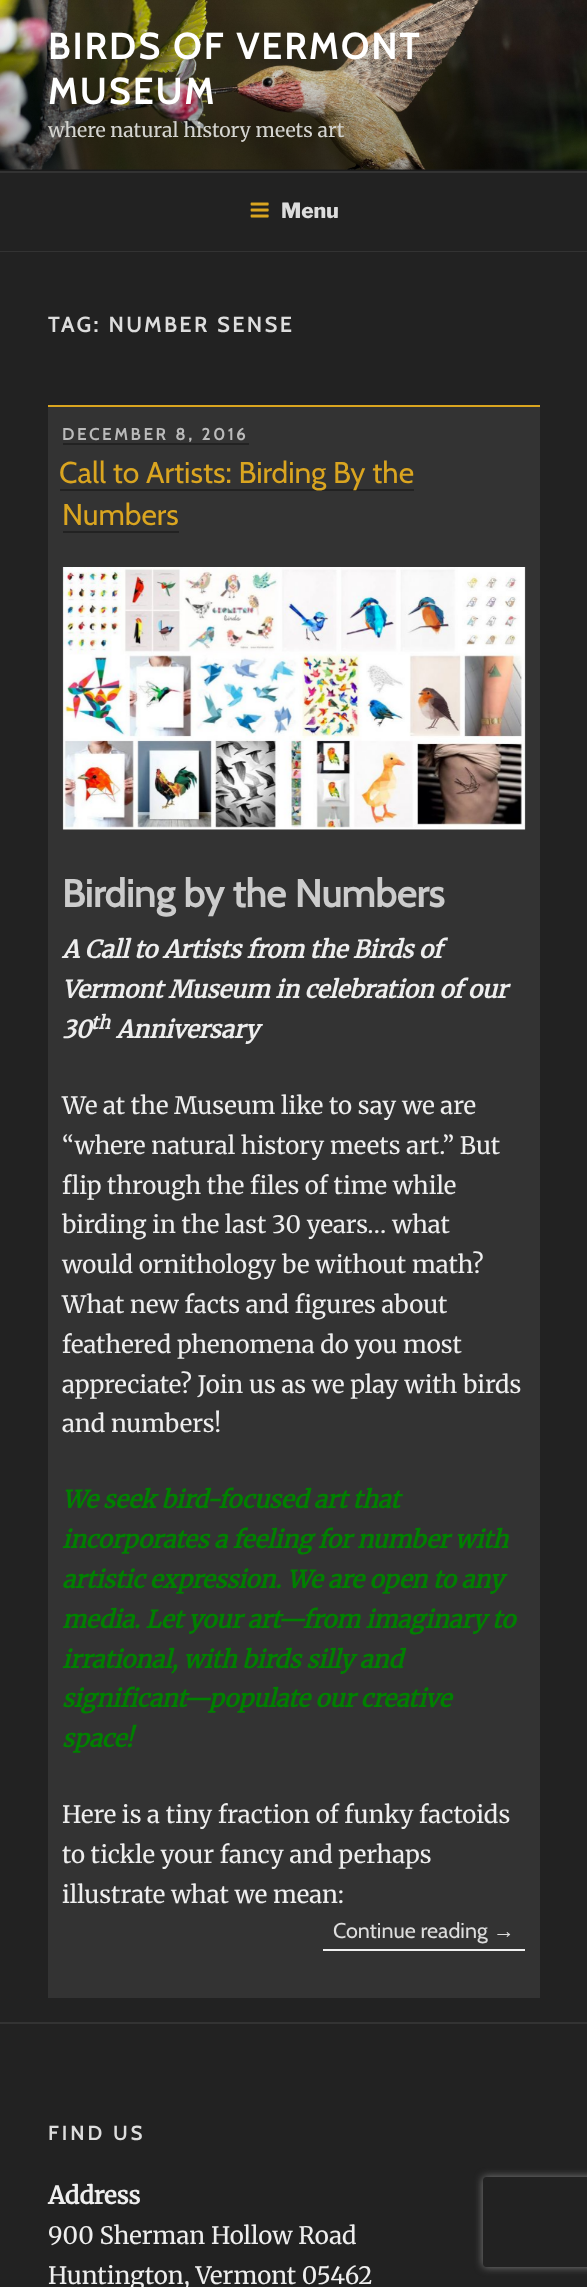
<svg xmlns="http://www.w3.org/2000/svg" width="587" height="2287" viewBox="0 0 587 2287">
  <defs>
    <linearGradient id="g1" gradientUnits="userSpaceOnUse" x1="294" y1="0" x2="294" y2="171"><stop offset="0" stop-color="#000" stop-opacity="0"/><stop offset="0.75" stop-color="#000" stop-opacity="0.3"/><stop offset="1" stop-color="#000" stop-opacity="0.3"/></linearGradient>
    <clipPath id="clip1"><path d="M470 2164H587V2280H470ZM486 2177H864C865.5 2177 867 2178.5 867 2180V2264C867 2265.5 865.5 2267 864 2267H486C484.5 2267 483 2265.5 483 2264V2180C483 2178.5 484.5 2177 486 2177Z" clip-rule="evenodd"/></clipPath>
  </defs>
  <rect width="100%" height="100%" fill="#262626"/>
  <image x="0" y="0" width="587" height="170" href="img/1.png"/>
  <path d="M0 9h587v162H0z" fill="url(#g1)"/>
  <path d="M0 173h587v78H0z" fill="#222"/>
  <path d="M0 171h587v2H0z" fill="#333"/>
  <path d="M0 251h587v1H0z" fill="#333"/>
  <image x="250" y="202" width="19" height="16" href="img/2.png"/>
  <path d="M0 252h587v2035H0z" fill="#222"/>
  <path d="M48 407h492v1591H48z" fill="#333"/>
  <path d="M48 405h492v2H48z" fill="#daa520"/>
  <path d="M63 443h186v2H63z" fill="#222"/>
  <path d="M60 489h354v2H60z" fill="#222"/>
  <path d="M63 531h116v2H63z" fill="#222"/>
  <image x="62" y="567" width="464" height="263" href="img/3.png"/>
  <path d="M323 1949h202v2H323z" fill="#f0f0f0"/>
  <path d="M0 2022h587v2H0z" fill="#333"/>
  <g clip-path="url(#clip1)">
    <rect x="483" y="2177" width="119" height="90" rx="3" fill="#808080" filter="blur(4px)"/>
  </g>
  <g font-family="Cabin" font-size="36" font-weight="bold" letter-spacing="2.9" fill="#fff">
    <text x="48" y="59">BIRDS OF VERMONT</text>
    <text x="48" y="104">MUSEUM</text>
  </g>
  <text x="48" y="137" font-family="Merriweather" font-size="19.5" font-weight="300" fill="#d5d5d1">where natural history meets art</text>
  <text x="281" y="218" font-family="Libre Franklin" font-size="21" font-weight="100" fill="#ddd">Menu</text>
  <text x="48" y="332" font-family="Cabin" font-size="21" font-weight="bold" letter-spacing="2.9" fill="#ddd">TAG: NUMBER SENSE</text>
  <text x="62" y="440" font-family="Cabin" font-size="16.5" font-weight="bold" letter-spacing="3" fill="#bbb">DECEMBER 8, 2016</text>
  <g font-family="Cabin" font-size="30" fill="#daa520">
    <text x="59" y="483">Call to Artists: Birding By the</text>
    <text x="62" y="525">Numbers</text>
  </g>
  <text x="62" y="907" font-family="Cabin" font-size="38.5" font-weight="bold" fill="#ccc">Birding by the Numbers</text>
  <g font-family="Merriweather" font-size="24" font-weight="bold" font-style="italic" fill="#eee">
    <text x="62" y="958">A Call to Artists from the Birds of</text>
    <text x="62" y="998">Vermont Museum in celebration of our</text>
    <text x="62" y="1038">30</text>
  </g>
  <text x="91" y="1029" font-family="Merriweather" font-size="18" font-weight="bold" font-style="italic" fill="#eee">th</text>
  <text x="116" y="1038" font-family="Merriweather" font-size="24" font-weight="bold" font-style="italic" fill="#eee">Anniversary</text>
  <g font-family="Merriweather" font-size="24" font-weight="300" fill="#eee">
    <text x="62" y="1114">We at the Museum like to say we are</text>
    <text x="62" y="1154">“where natural history meets art.” But</text>
    <text x="62" y="1194">flip through the files of time while</text>
    <text x="62" y="1233">birding in the last 30 years… what</text>
    <text x="62" y="1273">would ornithology be without math?</text>
    <text x="62" y="1313">What new facts and figures about</text>
    <text x="62" y="1353">feathered phenomena do you most</text>
    <text x="62" y="1393">appreciate? Join us as we play with birds</text>
    <text x="62" y="1432">and numbers!</text>
  </g>
  <g font-family="Merriweather" font-size="24" font-weight="bold" font-style="italic" fill="#008000">
    <text x="62" y="1508">We seek bird-focused art that</text>
    <text x="62" y="1548">incorporates a feeling for number with</text>
    <text x="62" y="1588">artistic expression. We are open to any</text>
    <text x="62" y="1628">media. Let your art—from imaginary to</text>
    <text x="62" y="1668">irrational, with birds silly and</text>
    <text x="62" y="1707">significant—populate our creative</text>
    <text x="62" y="1747">space!</text>
  </g>
  <g font-family="Merriweather" font-size="24" font-weight="300" fill="#eee">
    <text x="62" y="1823">Here is a tiny fraction of funky factoids</text>
    <text x="62" y="1863">to tickle your fancy and perhaps</text>
    <text x="62" y="1903">illustrate what we mean:</text>
  </g>
  <text x="333" y="1938" font-family="Cabin" font-size="21.5" fill="#ddd">Continue reading</text>
  <text x="493" y="1938" font-family="Liberation Sans" font-size="21.5" fill="#ddd">→</text>
  <text x="48" y="2140" font-family="Cabin" font-size="19.5" font-weight="bold" letter-spacing="3.5" fill="#ddd">FIND US</text>
  <text x="48" y="2204" font-family="Merriweather" font-size="24" font-weight="bold" fill="#eee">Address</text>
  <g font-family="Merriweather" font-size="24" font-weight="300" fill="#eee">
    <text x="48" y="2244">900 Sherman Hollow Road</text>
    <text x="48" y="2284">Huntington, Vermont 05462</text>
  </g>
</svg>
